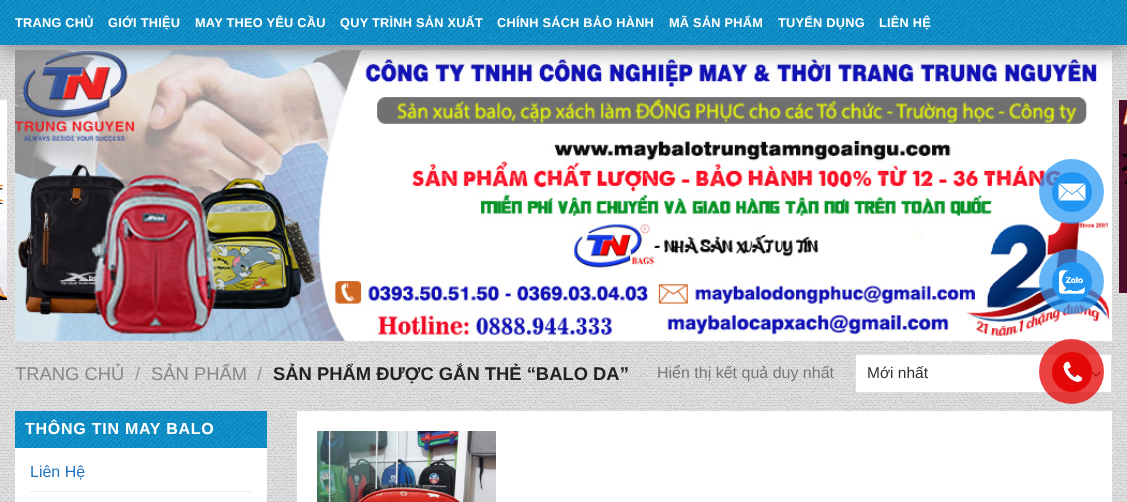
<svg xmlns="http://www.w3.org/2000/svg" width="1127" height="502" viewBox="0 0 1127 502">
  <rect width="100%" height="100%" fill="#fff"/>
  <image x="0" y="45" width="1127" height="356" href="img/2.png"/>
  <image x="0" y="100" width="7" height="200" href="img/1.png"/>
  <image x="15" y="50" width="1097" height="291" href="img/4.png"/>
  <path d="M0 5h1127v45H0z" fill="#888" filter="blur(10px)"/>
  <image x="0" y="0" width="1127" height="45" href="img/3.png"/>
  <path d="M856 355h255v37H856z" fill="#fff"/>
  <path d="M1092 372L1096 376L1100 372" fill="none" stroke="#333" stroke-width="1.3" stroke-linecap="round" stroke-linejoin="round"/>
  <path d="M855.5 354.5h256v38H855.5z" fill="none" stroke="#ddd"/>
  <image x="0" y="401" width="1127" height="101" href="img/5.png"/>
  <path d="M15 448h252v54H15z" fill="#fff"/>
  <image x="15" y="411" width="252" height="37" href="img/6.png"/>
  <path d="M30 491h222v1H30z" fill="#ececec"/>
  <path d="M297 411h815v91H297z" fill="#fff"/>
  <image x="317" y="431" width="179" height="71" href="img/7.png"/>
  <image x="1119" y="100" width="8" height="193" href="img/8.png"/>
  <circle cx="1071.5" cy="191.5" r="32.5" fill="#2196f3b3"/>
  <circle cx="1072" cy="192" r="20" fill="#2196f3"/>
  <image x="1058" y="183" width="28" height="18" href="img/9.png"/>
  <circle cx="1071.5" cy="281.5" r="32.5" fill="#2196f3b3"/>
  <circle cx="1072" cy="282" r="20" fill="#2196f3"/>
  <circle cx="1071.5" cy="371.5" r="32.5" fill="#e60808c4"/>
  <circle cx="1072" cy="372" r="20" fill="#e60808"/>
  <g font-family="Liberation Sans" font-size="12.75" font-weight="bold" letter-spacing="0.25" fill="#fff">
    <text x="15" y="27">TRANG CHỦ</text>
    <text x="108" y="27">GIỚI THIỆU</text>
    <text x="195" y="27">MAY THEO YÊU CẦU</text>
    <text x="340" y="27">QUY TRÌNH SẢN XUẤT</text>
    <text x="497" y="27">CHÍNH SÁCH BẢO HÀNH</text>
    <text x="669" y="27">MÃ SẢN PHẨM</text>
    <text x="778" y="27">TUYỂN DỤNG</text>
    <text x="879" y="27">LIÊN HỆ</text>
  </g>
  <text x="15" y="380" font-family="Liberation Sans" font-size="18.4" fill="#888">TRANG CHỦ</text>
  <text x="135" y="380" font-family="Liberation Sans" font-size="18.4" fill="#989898">/</text>
  <text x="151" y="380" font-family="Liberation Sans" font-size="18.4" fill="#888">SẢN PHẨM</text>
  <text x="257" y="380" font-family="Liberation Sans" font-size="18.4" fill="#989898">/</text>
  <text x="273" y="380" font-family="Liberation Sans" font-size="18.4" font-weight="bold" fill="#222">SẢN PHẨM ĐƯỢC GẮN THẺ “BALO DA”</text>
  <text x="657" y="378" font-family="Liberation Sans" font-size="16" fill="#777">Hiển thị kết quả duy nhất</text>
  <text x="867" y="378" font-family="Liberation Sans" font-size="15.5" fill="#333">Mới nhất</text>
  <text x="25" y="434" font-family="Liberation Sans" font-size="16" font-weight="bold" letter-spacing="0.75" fill="#fff">THÔNG TIN MAY BALO</text>
  <g font-family="Liberation Sans" font-size="16" fill="#1e73be">
    <text x="30" y="477">Liên Hệ</text>
    <text x="1070" y="286">.</text>
  </g>
  <image x="1059" y="270" width="26" height="24" href="img/10.png"/>
  <text x="1070" y="376" font-family="Liberation Sans" font-size="16" fill="#1e73be">.</text>
  <image x="1063" y="361" width="20" height="21" href="img/11.png"/>
</svg>
